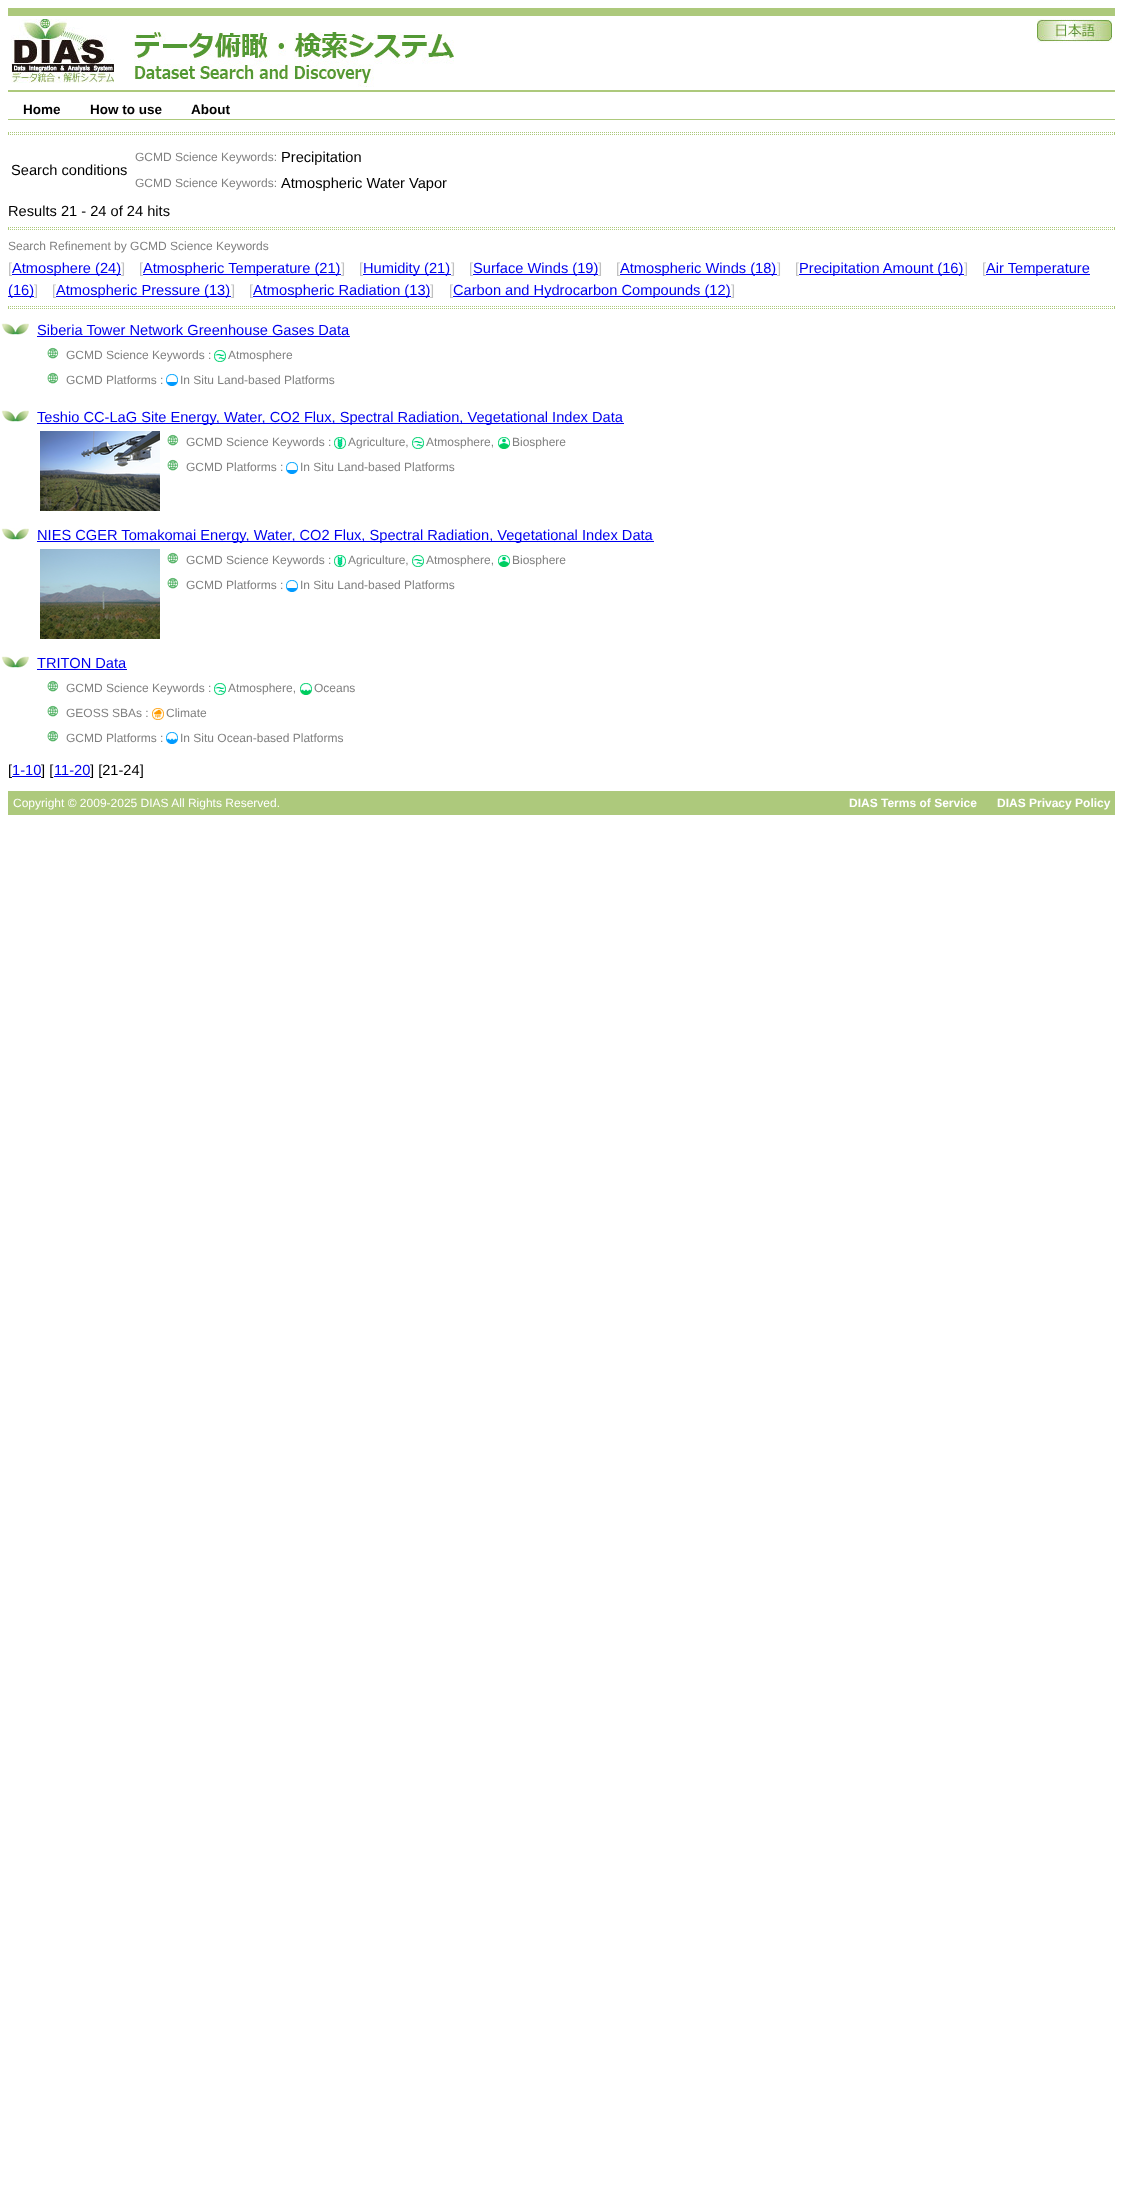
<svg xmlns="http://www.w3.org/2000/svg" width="1123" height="2191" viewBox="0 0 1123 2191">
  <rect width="100%" height="100%" fill="#fff"/>
  <path d="M8 8h1107v8H8z" fill="#adc97c"/>
  <path d="M8 90h1107v2H8z" fill="#adc97c"/>
  <image x="11" y="19" width="103" height="64" href="img/1.png"/>
  <image x="134" y="32" width="320" height="55" href="img/2.png"/>
  <image x="1037" y="19" width="75" height="24" href="img/3.png"/>
  <path d="M8 119h1107v1H8z" fill="#adc97c"/>
  <path d="M8 132.5H1115" fill="none" stroke="#adc97c" stroke-dasharray="1 1"/>
  <path d="M1114 132h1v3H1114z" fill="#adc97c"/>
  <path d="M8 134.5H1115" fill="none" stroke="#adc97c" stroke-dasharray="1 1"/>
  <path d="M8 132h1v3H8z" fill="#adc97c"/>
  <path d="M8 227.5H1115" fill="none" stroke="#adc97c" stroke-dasharray="1 1"/>
  <path d="M1114 227h1v3H1114z" fill="#adc97c"/>
  <path d="M8 229.5H1115" fill="none" stroke="#adc97c" stroke-dasharray="1 1"/>
  <path d="M8 227h1v3H8z" fill="#adc97c"/>
  <path d="M12 274h109v1H12z" fill="#00e"/>
  <path d="M473 274h125v1H473z" fill="#00e"/>
  <path d="M799 274h165v1H799z" fill="#00e"/>
  <path d="M986 274h104v1H986z" fill="#00e"/>
  <path d="M8 296h26v1H8z" fill="#00e"/>
  <path d="M253 296h177v1H253z" fill="#00e"/>
  <path d="M453 296h278v1H453z" fill="#00e"/>
  <path d="M8 306.5H1115" fill="none" stroke="#adc97c" stroke-dasharray="1 1"/>
  <path d="M1114 306h1v3H1114z" fill="#adc97c"/>
  <path d="M8 308.5H1115" fill="none" stroke="#adc97c" stroke-dasharray="1 1"/>
  <path d="M8 306h1v3H8z" fill="#adc97c"/>
  <image x="1" y="323" width="28" height="12" href="img/4.png"/>
  <path d="M37 336h313v1H37z" fill="#00e"/>
  <image x="47" y="347" width="12" height="12" href="img/5.png"/>
  <image x="214" y="350" width="12" height="12" href="img/6.png"/>
  <image x="47" y="372" width="12" height="12" href="img/5.png"/>
  <image x="166" y="374" width="12" height="12" href="img/7.png"/>
  <image x="1" y="410" width="28" height="12" href="img/4.png"/>
  <path d="M37 423h587v1H37z" fill="#00e"/>
  <image x="40" y="431" width="120" height="80" href="img/8.png"/>
  <image x="167" y="434" width="12" height="12" href="img/5.png"/>
  <image x="334" y="437" width="12" height="12" href="img/9.png"/>
  <image x="412" y="437" width="12" height="12" href="img/6.png"/>
  <image x="498" y="437" width="12" height="12" href="img/10.png"/>
  <image x="167" y="459" width="12" height="12" href="img/5.png"/>
  <image x="286" y="462" width="12" height="12" href="img/7.png"/>
  <image x="1" y="528" width="28" height="12" href="img/4.png"/>
  <path d="M37 541h617v1H37z" fill="#00e"/>
  <image x="40" y="549" width="120" height="90" href="img/11.png"/>
  <image x="167" y="552" width="12" height="12" href="img/5.png"/>
  <image x="334" y="555" width="12" height="12" href="img/9.png"/>
  <image x="412" y="555" width="12" height="12" href="img/6.png"/>
  <image x="498" y="555" width="12" height="12" href="img/10.png"/>
  <image x="167" y="577" width="12" height="12" href="img/5.png"/>
  <image x="286" y="580" width="12" height="12" href="img/7.png"/>
  <image x="1" y="656" width="28" height="12" href="img/4.png"/>
  <path d="M37 669h90v1H37z" fill="#00e"/>
  <image x="47" y="680" width="12" height="12" href="img/5.png"/>
  <image x="214" y="683" width="12" height="12" href="img/6.png"/>
  <image x="300" y="683" width="12" height="12" href="img/12.png"/>
  <image x="47" y="705" width="12" height="12" href="img/5.png"/>
  <image x="152" y="708" width="12" height="12" href="img/13.png"/>
  <image x="47" y="730" width="12" height="12" href="img/5.png"/>
  <image x="166" y="732" width="12" height="12" href="img/14.png"/>
  <path d="M12 776h29v1H12z" fill="#00e"/>
  <path d="M54 776h36v1H54z" fill="#00e"/>
  <path d="M8 791h1107v24H8z" fill="#adc97c"/>
  <g font-family="Liberation Sans" font-size="13.5" font-weight="bold" fill="#000">
    <text x="23" y="114">Home</text>
    <text x="90" y="114">How to use</text>
    <text x="191" y="114">About</text>
  </g>
  <text x="11" y="175" font-family="Liberation Sans" font-size="14.65" fill="#000">Search conditions</text>
  <text x="135" y="161" font-family="Liberation Sans" font-size="12" fill="#808080">GCMD Science Keywords:</text>
  <text x="281" y="162" font-family="Liberation Sans" font-size="14.65" fill="#000">Precipitation</text>
  <text x="135" y="187" font-family="Liberation Sans" font-size="12" fill="#808080">GCMD Science Keywords:</text>
  <g font-family="Liberation Sans" font-size="14.65" fill="#000">
    <text x="281" y="188">Atmospheric Water Vapor</text>
    <text x="8" y="216">Results 21 - 24 of 24 hits</text>
  </g>
  <text x="8" y="250" font-family="Liberation Sans" font-size="12" fill="#808080">Search Refinement by GCMD Science Keywords</text>
  <text x="8" y="273" font-family="Liberation Sans" font-size="14.65" fill="#c0c0c0">[</text>
  <text x="12" y="273" font-family="Liberation Sans" font-size="14.65" fill="#00e">Atmosphere (24)</text>
  <g font-family="Liberation Sans" font-size="14.65" fill="#c0c0c0">
    <text x="121" y="273">]</text>
    <text x="139" y="273">[</text>
  </g>
  <path d="M143 274h198v1H143z" fill="#00e"/>
  <text x="143" y="273" font-family="Liberation Sans" font-size="14.65" fill="#00e">Atmospheric Temperature (21)</text>
  <g font-family="Liberation Sans" font-size="14.65" fill="#c0c0c0">
    <text x="341" y="273">]</text>
    <text x="359" y="273">[</text>
  </g>
  <path d="M363 274h88v1H363z" fill="#00e"/>
  <text x="363" y="273" font-family="Liberation Sans" font-size="14.65" fill="#00e">Humidity (21)</text>
  <g font-family="Liberation Sans" font-size="14.65" fill="#c0c0c0">
    <text x="451" y="273">]</text>
    <text x="469" y="273">[</text>
  </g>
  <text x="473" y="273" font-family="Liberation Sans" font-size="14.65" fill="#00e">Surface Winds (19)</text>
  <g font-family="Liberation Sans" font-size="14.65" fill="#c0c0c0">
    <text x="598" y="273">]</text>
    <text x="616" y="273">[</text>
  </g>
  <path d="M620 274h157v1H620z" fill="#00e"/>
  <text x="620" y="273" font-family="Liberation Sans" font-size="14.65" fill="#00e">Atmospheric Winds (18)</text>
  <g font-family="Liberation Sans" font-size="14.65" fill="#c0c0c0">
    <text x="777" y="273">]</text>
    <text x="795" y="273">[</text>
  </g>
  <text x="799" y="273" font-family="Liberation Sans" font-size="14.65" fill="#00e">Precipitation Amount (16)</text>
  <g font-family="Liberation Sans" font-size="14.65" fill="#c0c0c0">
    <text x="964" y="273">]</text>
    <text x="982" y="273">[</text>
  </g>
  <g font-family="Liberation Sans" font-size="14.65" fill="#00e">
    <text x="986" y="273">Air Temperature</text>
    <text x="8" y="295">(16)</text>
  </g>
  <g font-family="Liberation Sans" font-size="14.65" fill="#c0c0c0">
    <text x="34" y="295">]</text>
    <text x="52" y="295">[</text>
  </g>
  <path d="M56 296h175v1H56z" fill="#00e"/>
  <text x="56" y="295" font-family="Liberation Sans" font-size="14.65" fill="#00e">Atmospheric Pressure (13)</text>
  <g font-family="Liberation Sans" font-size="14.65" fill="#c0c0c0">
    <text x="231" y="295">]</text>
    <text x="249" y="295">[</text>
  </g>
  <text x="253" y="295" font-family="Liberation Sans" font-size="14.65" fill="#00e">Atmospheric Radiation (13)</text>
  <g font-family="Liberation Sans" font-size="14.65" fill="#c0c0c0">
    <text x="430" y="295">]</text>
    <text x="449" y="295">[</text>
  </g>
  <text x="453" y="295" font-family="Liberation Sans" font-size="14.65" fill="#00e">Carbon and Hydrocarbon Compounds (12)</text>
  <text x="731" y="295" font-family="Liberation Sans" font-size="14.65" fill="#c0c0c0">]</text>
  <text x="37" y="335" font-family="Liberation Sans" font-size="14.65" fill="#00e">Siberia Tower Network Greenhouse Gases Data</text>
  <g font-family="Liberation Sans" font-size="12" fill="#808080">
    <text x="66" y="359">GCMD Science Keywords :</text>
    <text x="228" y="359">Atmosphere</text>
    <text x="66" y="384">GCMD Platforms :</text>
    <text x="180" y="384">In Situ Land-based Platforms</text>
  </g>
  <text x="37" y="422" font-family="Liberation Sans" font-size="14.65" fill="#00e">Teshio CC-LaG Site Energy, Water, CO2 Flux, Spectral Radiation, Vegetational Index Data</text>
  <g font-family="Liberation Sans" font-size="12" fill="#808080">
    <text x="186" y="446">GCMD Science Keywords :</text>
    <text x="348" y="446">Agriculture,</text>
    <text x="426" y="446">Atmosphere,</text>
    <text x="512" y="446">Biosphere</text>
    <text x="186" y="471">GCMD Platforms :</text>
    <text x="300" y="471">In Situ Land-based Platforms</text>
  </g>
  <text x="37" y="540" font-family="Liberation Sans" font-size="14.65" fill="#00e">NIES CGER Tomakomai Energy, Water, CO2 Flux, Spectral Radiation, Vegetational Index Data</text>
  <g font-family="Liberation Sans" font-size="12" fill="#808080">
    <text x="186" y="564">GCMD Science Keywords :</text>
    <text x="348" y="564">Agriculture,</text>
    <text x="426" y="564">Atmosphere,</text>
    <text x="512" y="564">Biosphere</text>
    <text x="186" y="589">GCMD Platforms :</text>
    <text x="300" y="589">In Situ Land-based Platforms</text>
  </g>
  <text x="37" y="668" font-family="Liberation Sans" font-size="14.65" fill="#00e">TRITON Data</text>
  <g font-family="Liberation Sans" font-size="12" fill="#808080">
    <text x="66" y="692">GCMD Science Keywords :</text>
    <text x="228" y="692">Atmosphere,</text>
    <text x="314" y="692">Oceans</text>
    <text x="66" y="717">GEOSS SBAs :</text>
    <text x="166" y="717">Climate</text>
    <text x="66" y="742">GCMD Platforms :</text>
    <text x="180" y="742">In Situ Ocean-based Platforms</text>
  </g>
  <text x="8" y="775" font-family="Liberation Sans" font-size="14.65" fill="#000">[</text>
  <text x="12" y="775" font-family="Liberation Sans" font-size="14.65" fill="#00e">1-10</text>
  <text x="41" y="775" font-family="Liberation Sans" font-size="14.65" fill="#000">] [</text>
  <text x="54" y="775" font-family="Liberation Sans" font-size="14.65" fill="#00e">11-20</text>
  <text x="90" y="775" font-family="Liberation Sans" font-size="14.65" fill="#000">] [21-24]</text>
  <text x="13" y="807" font-family="Liberation Sans" font-size="12" fill="#fff">Copyright © 2009-2025 DIAS All Rights Reserved.</text>
  <g font-family="Liberation Sans" font-size="12" font-weight="bold" fill="#fff">
    <text x="849" y="807">DIAS Terms of Service</text>
    <text x="997" y="807">DIAS Privacy Policy</text>
  </g>
</svg>
